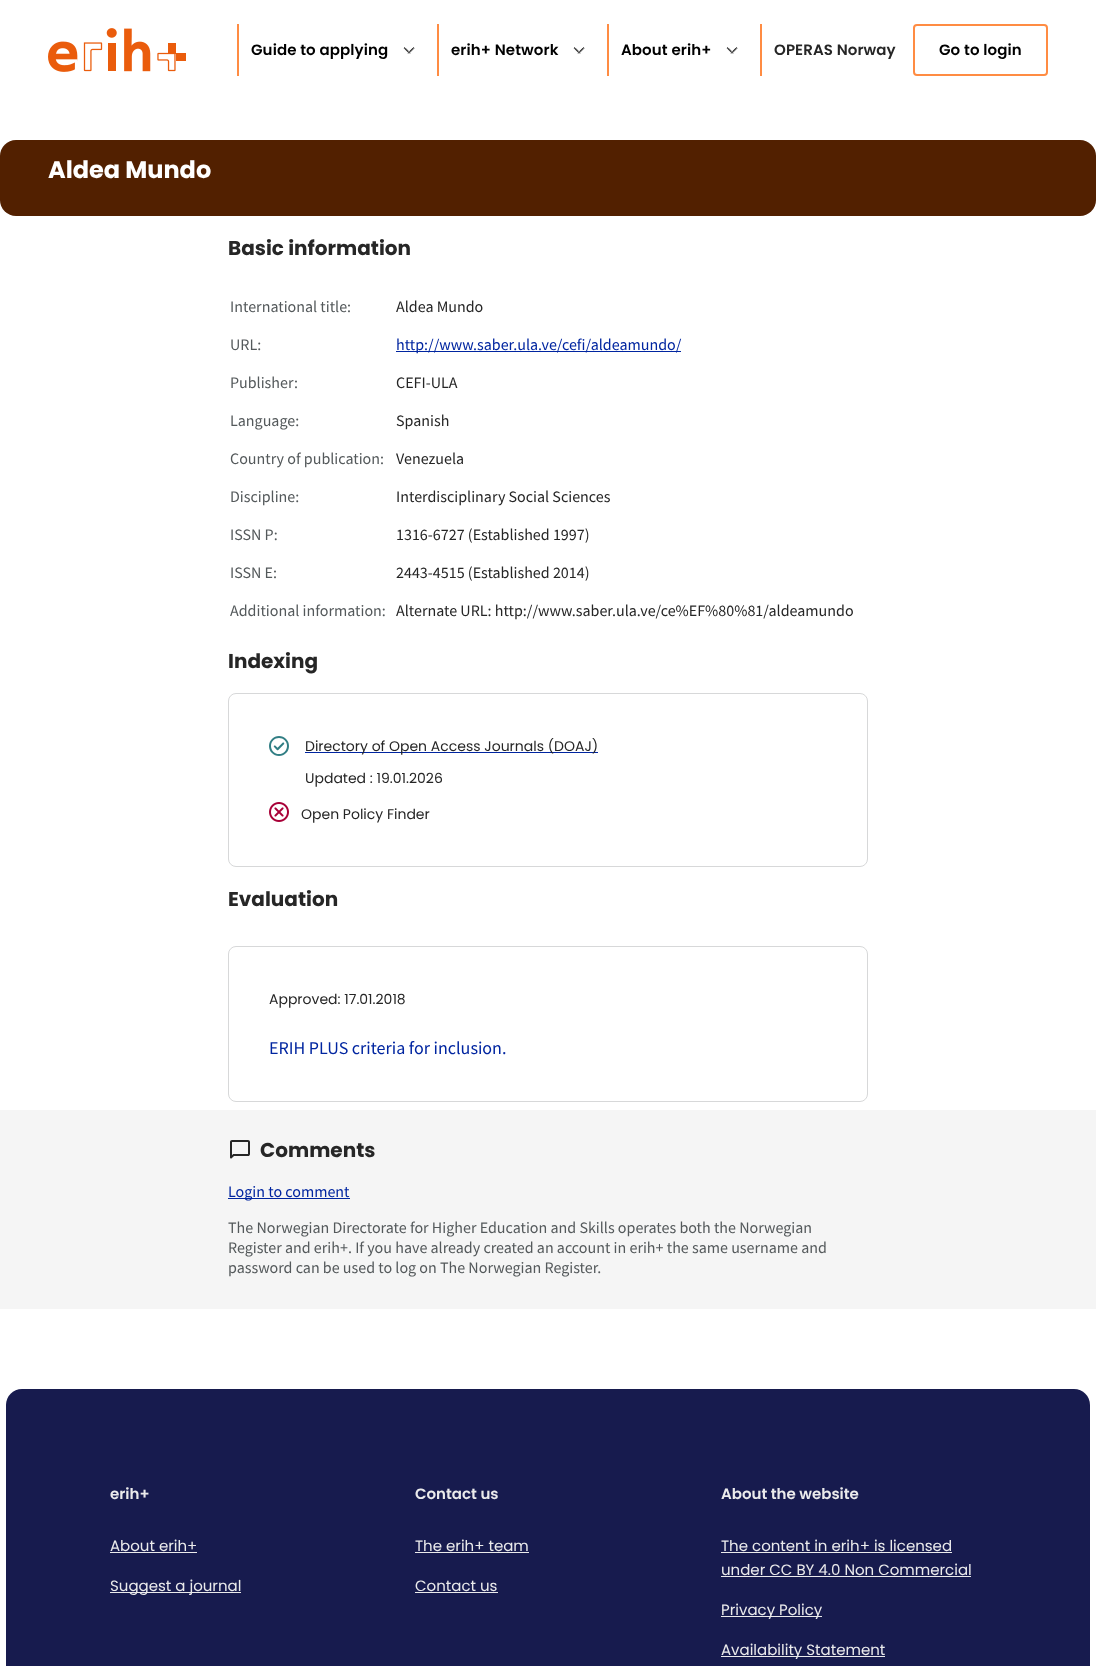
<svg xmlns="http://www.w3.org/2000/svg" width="1096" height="1666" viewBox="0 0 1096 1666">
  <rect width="100%" height="100%" fill="#fff"/>
  <image x="48" y="28" width="138" height="44" href="img/1.png"/>
  <path d="M237 24h2v52H237z" fill="#ff8c43"/>
  <image x="403" y="47" width="12" height="7" href="img/2.png"/>
  <path d="M437 24h2v52H437z" fill="#ff8c43"/>
  <image x="573" y="47" width="12" height="7" href="img/2.png"/>
  <path d="M607 24h2v52H607z" fill="#ff8c43"/>
  <image x="726" y="47" width="12" height="7" href="img/2.png"/>
  <path d="M760 24h2v52H760z" fill="#ff8c43"/>
  <rect x="914" y="25" width="133" height="50" rx="3" fill="none" stroke="#ff8c43" stroke-width="2"/>
  <rect y="140" width="1096" height="76" rx="16" fill="#522000"/>
  <path d="M396 351h285v1H396z" fill="#0025a0"/>
  <rect x="228.5" y="693.5" width="639" height="173" rx="7.5" fill="none" stroke="#d7d8d9"/>
  <image x="269" y="736" width="20" height="20" href="img/3.png"/>
  <path d="M305 752h293v1H305z" fill="#0025a0"/>
  <image x="269" y="802" width="20" height="20" href="img/4.png"/>
  <rect x="228.5" y="946.5" width="639" height="155" rx="7.5" fill="none" stroke="#d7d8d9"/>
  <path d="M0 1110h1096v199H0z" fill="#f5f5f5"/>
  <image x="230" y="1140" width="20" height="19" href="img/5.png"/>
  <path d="M228 1198h122v1H228z" fill="#0025a0"/>
  <path d="M22 1389H1074C1083 1389 1090 1396 1090 1405V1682H6V1405C6 1396 13 1389 22 1389Z" fill="#171b4e"/>
  <path d="M110 1552h87v1H110z" fill="#ebebec"/>
  <path d="M110 1592h131v1H110z" fill="#ebebec"/>
  <path d="M415 1552h114v1H415z" fill="#ebebec"/>
  <path d="M415 1592h83v1H415z" fill="#ebebec"/>
  <path d="M721 1552h231v1H721z" fill="#ebebec"/>
  <path d="M721 1576h250v1H721z" fill="#ebebec"/>
  <path d="M721 1616h101v1H721z" fill="#ebebec"/>
  <path d="M721 1656h164v1H721z" fill="#ebebec"/>
  <g font-family="Poppins" font-size="15" font-weight="600" letter-spacing="0.1" fill="#000">
    <text x="251" y="55">Guide to applying</text>
    <text x="451" y="55">erih+ Network</text>
    <text x="621" y="55">About erih+</text>
  </g>
  <text x="774" y="55" font-family="Poppins" font-size="15" font-weight="600" letter-spacing="0.1" fill="#262626">OPERAS Norway</text>
  <text x="939" y="55" font-family="Poppins" font-size="15" font-weight="600" letter-spacing="0.1" fill="#000">Go to login</text>
  <text x="48" y="178" font-family="Poppins" font-size="24" font-weight="bold" fill="#fff">Aldea Mundo</text>
  <text x="228" y="255" font-family="Poppins" font-size="20" font-weight="bold" fill="#262626">Basic information</text>
  <text x="230" y="312" font-family="Source Sans Pro" font-size="16" fill="#54595b">International title:</text>
  <text x="396" y="312" font-family="Source Sans Pro" font-size="16" fill="#262626">Aldea Mundo</text>
  <text x="230" y="350" font-family="Source Sans Pro" font-size="16" fill="#54595b">URL:</text>
  <text x="396" y="350" font-family="Source Sans Pro" font-size="16" fill="#0025a0">http://www.saber.ula.ve/cefi/aldeamundo/</text>
  <text x="230" y="388" font-family="Source Sans Pro" font-size="16" fill="#54595b">Publisher:</text>
  <text x="396" y="388" font-family="Source Sans Pro" font-size="16" fill="#262626">CEFI-ULA</text>
  <text x="230" y="426" font-family="Source Sans Pro" font-size="16" fill="#54595b">Language:</text>
  <text x="396" y="426" font-family="Source Sans Pro" font-size="16" fill="#262626">Spanish</text>
  <text x="230" y="464" font-family="Source Sans Pro" font-size="16" fill="#54595b">Country of publication:</text>
  <text x="396" y="464" font-family="Source Sans Pro" font-size="16" fill="#262626">Venezuela</text>
  <text x="230" y="502" font-family="Source Sans Pro" font-size="16" fill="#54595b">Discipline:</text>
  <text x="396" y="502" font-family="Source Sans Pro" font-size="16" fill="#262626">Interdisciplinary Social Sciences</text>
  <text x="230" y="540" font-family="Source Sans Pro" font-size="16" fill="#54595b">ISSN P:</text>
  <text x="396" y="540" font-family="Source Sans Pro" font-size="16" fill="#262626">1316-6727 (Established 1997)</text>
  <text x="230" y="578" font-family="Source Sans Pro" font-size="16" fill="#54595b">ISSN E:</text>
  <text x="396" y="578" font-family="Source Sans Pro" font-size="16" fill="#262626">2443-4515 (Established 2014)</text>
  <text x="230" y="616" font-family="Source Sans Pro" font-size="16" fill="#54595b">Additional information:</text>
  <text x="396" y="616" font-family="Source Sans Pro" font-size="16" fill="#262626">Alternate URL: http://www.saber.ula.ve/ce%EF%80%81/aldeamundo</text>
  <text x="228" y="668" font-family="Poppins" font-size="20" font-weight="bold" fill="#262626">Indexing</text>
  <g font-family="Poppins" font-size="14" fill="#262626">
    <text x="305" y="751">Directory of Open Access Journals (DOAJ)</text>
    <text x="305" y="783">Updated : 19.01.2026</text>
    <text x="301" y="819">Open Policy Finder</text>
  </g>
  <text x="228" y="906" font-family="Poppins" font-size="20" font-weight="bold" fill="#262626">Evaluation</text>
  <text x="269" y="1004" font-family="Poppins" font-size="14" fill="#262626">Approved: 17.01.2018</text>
  <text x="269" y="1054" font-family="Source Sans Pro" font-size="18" fill="#0025a0">ERIH PLUS criteria for inclusion.</text>
  <text x="260" y="1157" font-family="Poppins" font-size="20" font-weight="bold" fill="#262626">Comments</text>
  <text x="228" y="1197" font-family="Source Sans Pro" font-size="16" fill="#0025a0">Login to comment</text>
  <g font-family="Source Sans Pro" font-size="16" fill="#54595b">
    <text x="228" y="1233">The Norwegian Directorate for Higher Education and Skills operates both the Norwegian</text>
    <text x="228" y="1253">Register and erih+. If you have already created an account in erih+ the same username and</text>
    <text x="228" y="1273">password can be used to log on The Norwegian Register.</text>
  </g>
  <text x="110" y="1499" font-family="Poppins" font-size="15" font-weight="600" fill="#ebebec">erih+</text>
  <g font-family="Poppins" font-size="15" fill="#ebebec">
    <text x="110" y="1551">About erih+</text>
    <text x="110" y="1591">Suggest a journal</text>
  </g>
  <text x="415" y="1499" font-family="Poppins" font-size="15" font-weight="600" fill="#ebebec">Contact us</text>
  <g font-family="Poppins" font-size="15" fill="#ebebec">
    <text x="415" y="1551">The erih+ team</text>
    <text x="415" y="1591">Contact us</text>
  </g>
  <text x="721" y="1499" font-family="Poppins" font-size="15" font-weight="600" fill="#ebebec">About the website</text>
  <g font-family="Poppins" font-size="15" fill="#ebebec">
    <text x="721" y="1551">The content in erih+ is licensed</text>
    <text x="721" y="1575">under CC BY 4.0 Non Commercial</text>
    <text x="721" y="1615">Privacy Policy</text>
    <text x="721" y="1655">Availability Statement</text>
  </g>
</svg>
